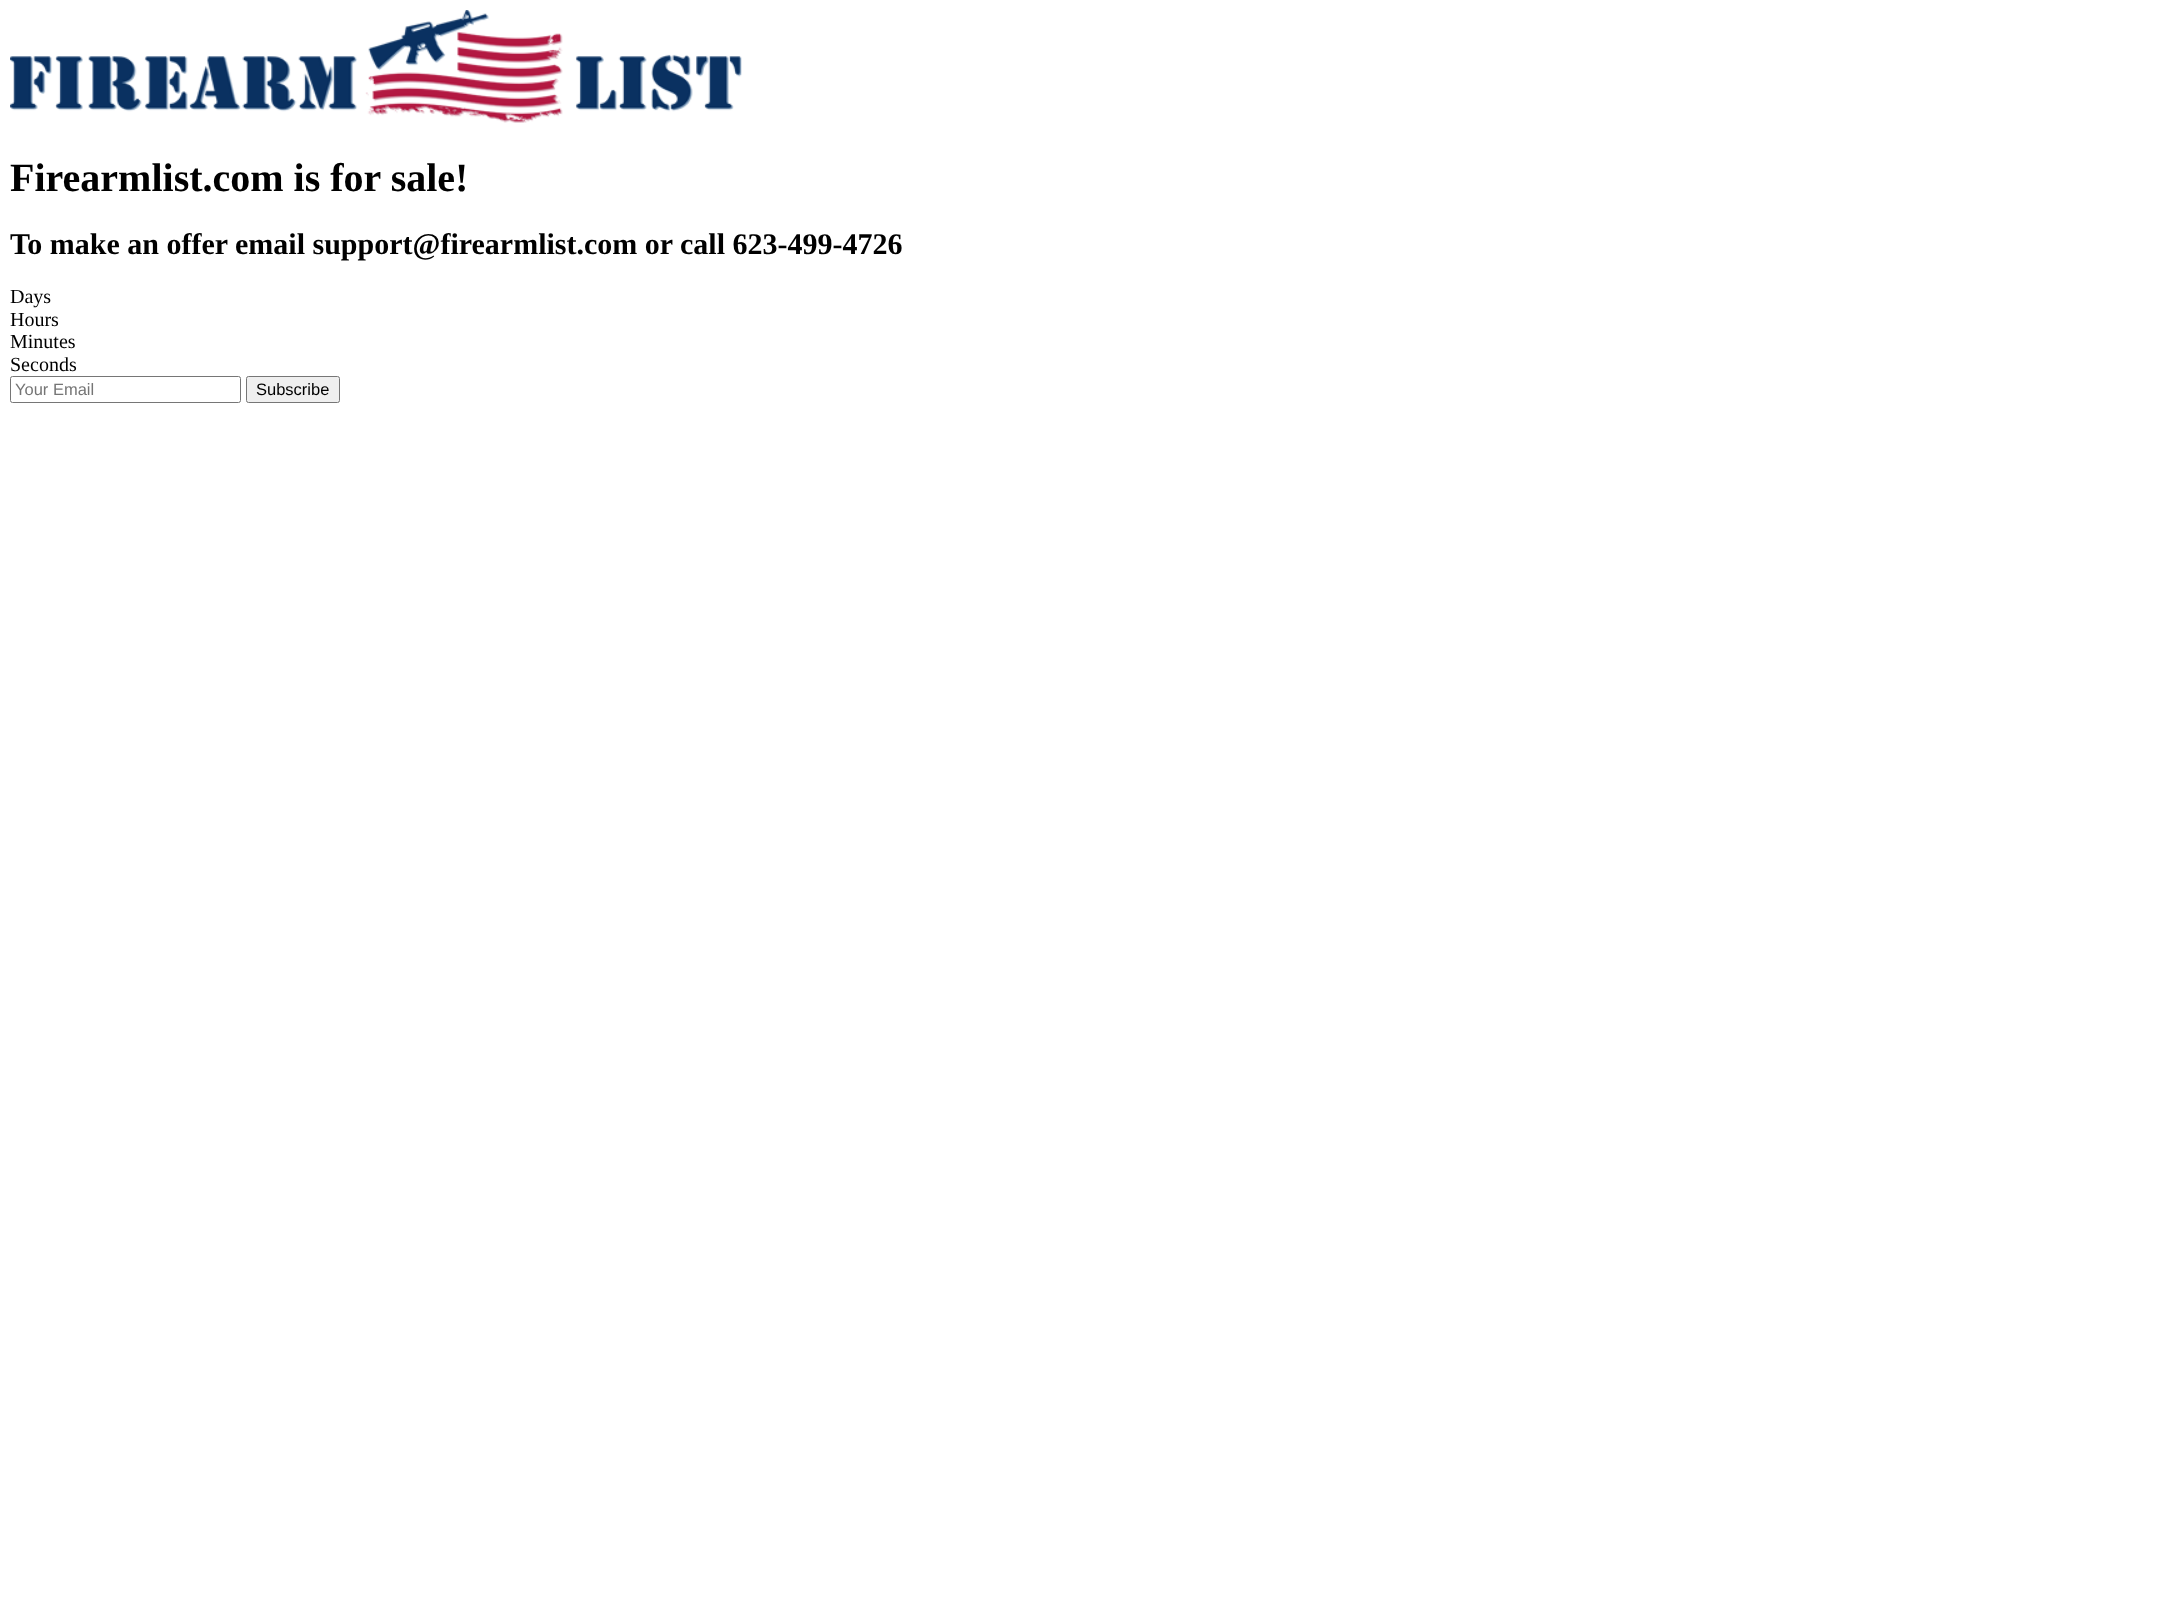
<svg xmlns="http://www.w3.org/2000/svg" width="2184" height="1609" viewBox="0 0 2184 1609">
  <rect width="100%" height="100%" fill="#fff"/>
  <image x="10" y="10" width="732" height="113" href="img/1.png"/>
  <rect x="10.5" y="376.5" width="230" height="26" rx="2" fill="none" stroke="#767676"/>
  <rect x="246.5" y="376.5" width="93" height="26" rx="2" fill="#efefef" stroke="#767676"/>
  <text x="10" y="191" font-family="Liberation Serif" font-size="40" font-weight="bold" fill="#000">Firearmlist.com is for sale!</text>
  <text x="10" y="254" font-family="Liberation Serif" font-size="30" font-weight="bold" fill="#000">To make an offer email support@firearmlist.com or call 623-499-4726</text>
  <g font-family="Liberation Serif" font-size="20" fill="#000">
    <text x="10" y="303">Days</text>
    <text x="10" y="326">Hours</text>
    <text x="10" y="348">Minutes</text>
    <text x="10" y="371">Seconds</text>
  </g>
  <text x="15" y="395" font-family="Liberation Sans" font-size="16.5" fill="#757575">Your Email</text>
  <text x="256" y="395" font-family="Liberation Sans" font-size="16.5" fill="#000">Subscribe</text>
</svg>
